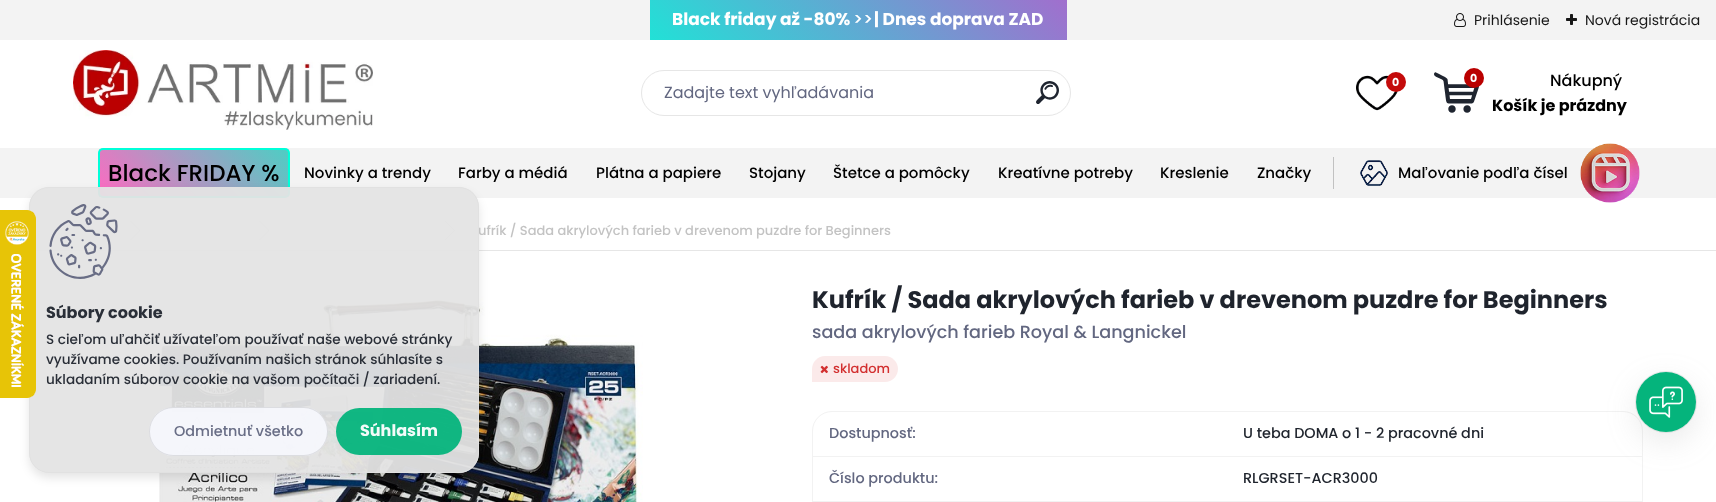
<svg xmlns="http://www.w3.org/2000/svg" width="1716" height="502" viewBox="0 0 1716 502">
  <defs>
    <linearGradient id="g1" gradientUnits="userSpaceOnUse" x1="1027" y1="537" x2="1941" y2="-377"><stop offset="0" stop-color="#00ffd9"/><stop offset="0.5" stop-color="#ff1ac7"/><stop offset="1" stop-color="#00ffd9"/></linearGradient>
    <clipPath id="clip1"><rect x="98" y="148" width="192" height="50" rx="5"/></clipPath>
    <linearGradient id="g2" gradientUnits="userSpaceOnUse" x1="-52" y1="186" x2="65" y2="69"><stop offset="0" stop-color="#ff6ac1"/><stop offset="1" stop-color="#4ecdc4"/></linearGradient>
    <linearGradient id="g3" gradientUnits="userSpaceOnUse" x1="324" y1="186" x2="441" y2="69"><stop offset="0" stop-color="#ff6ac1"/><stop offset="1" stop-color="#4ecdc4"/></linearGradient>
    <linearGradient id="g4" gradientUnits="userSpaceOnUse" x1="136" y1="232" x2="253" y2="115"><stop offset="0" stop-color="#ff6ac1"/><stop offset="1" stop-color="#4ecdc4"/></linearGradient>
    <linearGradient id="g5" gradientUnits="userSpaceOnUse" x1="-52" y1="278" x2="65" y2="161"><stop offset="0" stop-color="#ff6ac1"/><stop offset="1" stop-color="#4ecdc4"/></linearGradient>
    <linearGradient id="g6" gradientUnits="userSpaceOnUse" x1="324" y1="278" x2="441" y2="161"><stop offset="0" stop-color="#ff6ac1"/><stop offset="1" stop-color="#4ecdc4"/></linearGradient>
    <clipPath id="clip2"><path d="M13 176H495V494H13ZM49 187H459C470 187 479 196 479 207V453C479 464 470 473 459 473H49C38 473 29 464 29 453V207C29 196 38 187 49 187Z" clip-rule="evenodd"/></clipPath>
  </defs>
  <rect width="100%" height="100%" fill="#fff"/>
  <path d="M0 0h1716v40H0z" fill="#f3f3f3"/>
  <path d="M650 0h417v40H650z" fill="url(#g1)"/>
  <path d="M0 148h1716v50H0z" fill="#f3f3f3"/>
  <g clip-path="url(#clip1)">
    <path d="M98 149h2v1H98z" fill="url(#g2)"/>
    <path d="M288 149h2v1H288z" fill="url(#g3)"/>
  </g>
  <path d="M100 150h188v46H100z" fill="url(#g4)"/>
  <g clip-path="url(#clip1)">
    <path d="M98 196h2v1H98z" fill="url(#g5)"/>
    <path d="M288 196h2v1H288z" fill="url(#g6)"/>
  </g>
  <rect x="99" y="149" width="190" height="48" rx="4" fill="none" stroke="#00ffd9" stroke-width="2"/>
  <path d="M1333 157h1v32H1333z" fill="#c1c1c1"/>
  <image x="1360" y="160" width="28" height="26" href="img/2.png"/>
  <image x="1580" y="143" width="60" height="60" href="img/3.png"/>
  <image x="1454" y="13" width="12" height="14" href="img/4.png"/>
  <image x="1566" y="14" width="11" height="11" href="img/5.png"/>
  <image x="73" y="50" width="300" height="80" href="img/6.png"/>
  <rect x="641.5" y="70.5" width="429" height="45" rx="22.5" fill="none" stroke="#e6e6e6"/>
  <image x="1036" y="81" width="23" height="23" href="img/7.png"/>
  <image x="1356" y="75" width="42" height="36" href="img/8.png"/>
  <circle cx="1396" cy="82" r="10" fill="#c40b0b"/>
  <image x="1434" y="72" width="45" height="41" href="img/9.png"/>
  <circle cx="1474" cy="78" r="10" fill="#ba0000"/>
  <path d="M36 250h1680v1H36z" fill="#e6e6e6"/>
  <path d="M130 221H131L140.5 230.5H139.5Z" fill="#c3c3c3"/>
  <path d="M139.5 230.5H140.5L131 240H130Z" fill="#3737374d"/>
  <path d="M259 221H260L269.5 230.5H268.5Z" fill="#c3c3c3"/>
  <path d="M268.5 230.5H269.5L260 240H259Z" fill="#3737374d"/>
  <path d="M444.5 221H445.5L455 230.5H454Z" fill="#c3c3c3"/>
  <path d="M454 230.5H455L445.5 240H444.5Z" fill="#c3c3c3"/>
  <image x="155" y="296" width="488" height="206" href="img/10.png"/>
  <path d="M825 356H885C892 356 898 362 898 369C898 376 892 382 885 382H812V369C812 362 818 356 825 356Z" fill="#fbeaea"/>
  <image x="820" y="365" width="8" height="9" href="img/11.png"/>
  <rect x="812.5" y="411.5" width="830" height="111" rx="19.5" fill="none" stroke="#f2f2f2"/>
  <path d="M813 456h829v1H813z" fill="#f2f2f2"/>
  <path d="M813 501h829v1H813z" fill="#f2f2f2"/>
  <g clip-path="url(#clip2)">
    <rect x="29" y="192" width="450" height="286" rx="20" fill="#0000001a" filter="blur(5px)"/>
  </g>
  <circle cx="1666" cy="402" r="30.5" fill="none" stroke="#eaeaea"/>
  <rect x="1636" y="382" width="60" height="60" rx="30" fill="#96969633" filter="blur(15px)"/>
  <circle cx="1666" cy="402" r="30" fill="#05b47c"/>
  <image x="1649" y="386" width="34" height="32" href="img/13.png"/>
  <text x="672" y="25" font-family="Poppins" font-size="17" font-weight="bold" fill="#fff">Black friday až -80%</text>
  <text x="853" y="25" font-family="Poppins" font-size="17" font-weight="500" fill="#fff">&gt;&gt;</text>
  <text x="874" y="25" font-family="Poppins" font-size="17" font-weight="bold" fill="#fff">| Dnes doprava ZAD</text>
  <text x="108" y="181" font-family="Poppins" font-size="23" font-weight="500" fill="#000">Black FRIDAY %</text>
  <g font-family="Poppins" font-size="15" font-weight="500" fill="#000">
    <text x="304" y="178">Novinky a trendy</text>
    <text x="458" y="178">Farby a médiá</text>
    <text x="596" y="178">Plátna a papiere</text>
    <text x="749" y="178">Stojany</text>
    <text x="833" y="178">Štetce a pomôcky</text>
    <text x="998" y="178">Kreatívne potreby</text>
    <text x="1160" y="178">Kreslenie</text>
    <text x="1257" y="178">Značky</text>
    <text x="1398" y="178">Maľovanie podľa čísel</text>
  </g>
  <g font-family="Poppins" font-size="14" fill="#171717">
    <text x="1474" y="25">Prihlásenie</text>
    <text x="1585" y="25">Nová registrácia</text>
  </g>
  <text x="664" y="98" font-family="Poppins" font-size="16" fill="#626780">Zadajte text vyhľadávania</text>
  <g font-family="Poppins" font-size="11" font-weight="bold" fill="#fff">
    <text x="1392" y="86">0</text>
    <text x="1470" y="82">0</text>
  </g>
  <text x="1550" y="86" font-family="Poppins" font-size="16" font-weight="500" fill="#000">Nákupný</text>
  <text x="1492" y="111" font-family="Poppins" font-size="16" font-weight="bold" fill="#000">Košík je prázdny</text>
  <text x="478" y="235" font-family="Poppins" font-size="13" font-weight="500" fill="#c3c3c3">ufrík / Sada akrylových farieb v drevenom puzdre for Beginners</text>
  <text x="812" y="308" font-family="Poppins" font-size="24" font-weight="bold" fill="#1f242d">Kufrík / Sada akrylových farieb v drevenom puzdre for Beginners</text>
  <text x="812" y="338" font-family="Poppins" font-size="17.6" font-weight="500" fill="#626780">sada akrylových farieb Royal &amp; Langnickel</text>
  <text x="833" y="373" font-family="Poppins" font-size="13" font-weight="500" fill="#d22f2f">skladom</text>
  <text x="829" y="438" font-family="Poppins" font-size="14.4" font-weight="500" fill="#626780">Dostupnosť:</text>
  <text x="1243" y="438" font-family="Poppins" font-size="14.4" font-weight="500" fill="#1f242d">U teba DOMA o 1 - 2 pracovné dni</text>
  <text x="829" y="483" font-family="Poppins" font-size="14.4" font-weight="500" fill="#626780">Číslo produktu:</text>
  <text x="1243" y="483" font-family="Poppins" font-size="14.4" font-weight="500" fill="#1f242d">RLGRSET-ACR3000</text>
  <rect x="29" y="187" width="450" height="286" rx="20" fill="#e4e4e4f2"/>
  <rect x="29.5" y="187.5" width="449" height="285" rx="19.5" fill="none" stroke="#e0e0e0f2"/>
  <image x="0" y="210" width="36" height="188" href="img/1.png"/>
  <image x="49" y="204" width="69" height="75" href="img/12.png"/>
  <text x="46" y="318" font-family="Poppins" font-size="16" font-weight="bold" fill="#2a2f38">Súbory cookie</text>
  <g font-family="Poppins" font-size="13.6" font-weight="500" fill="#2a2f38">
    <text x="46" y="344">S cieľom uľahčiť užívateľom používať naše webové stránky</text>
    <text x="46" y="364">využívame cookies. Používaním našich stránok súhlasíte s</text>
    <text x="46" y="384">ukladaním súborov cookie na vašom počítači / zariadení.</text>
  </g>
  <rect x="149" y="407" width="179" height="49" rx="24.5" fill="#f6f7fcf2"/>
  <rect x="149.5" y="407.5" width="178" height="48" rx="24" fill="none" stroke="#0000001a"/>
  <text x="174" y="436" font-family="Poppins" font-size="14.4" font-weight="500" fill="#696e86">Odmietnuť všetko</text>
  <rect x="336" y="408" width="126" height="47" rx="23.5" fill="#05b47cf2"/>
  <text x="360" y="436" font-family="Poppins" font-size="16" font-weight="bold" fill="#f3fbf9">Súhlasím</text>
</svg>
